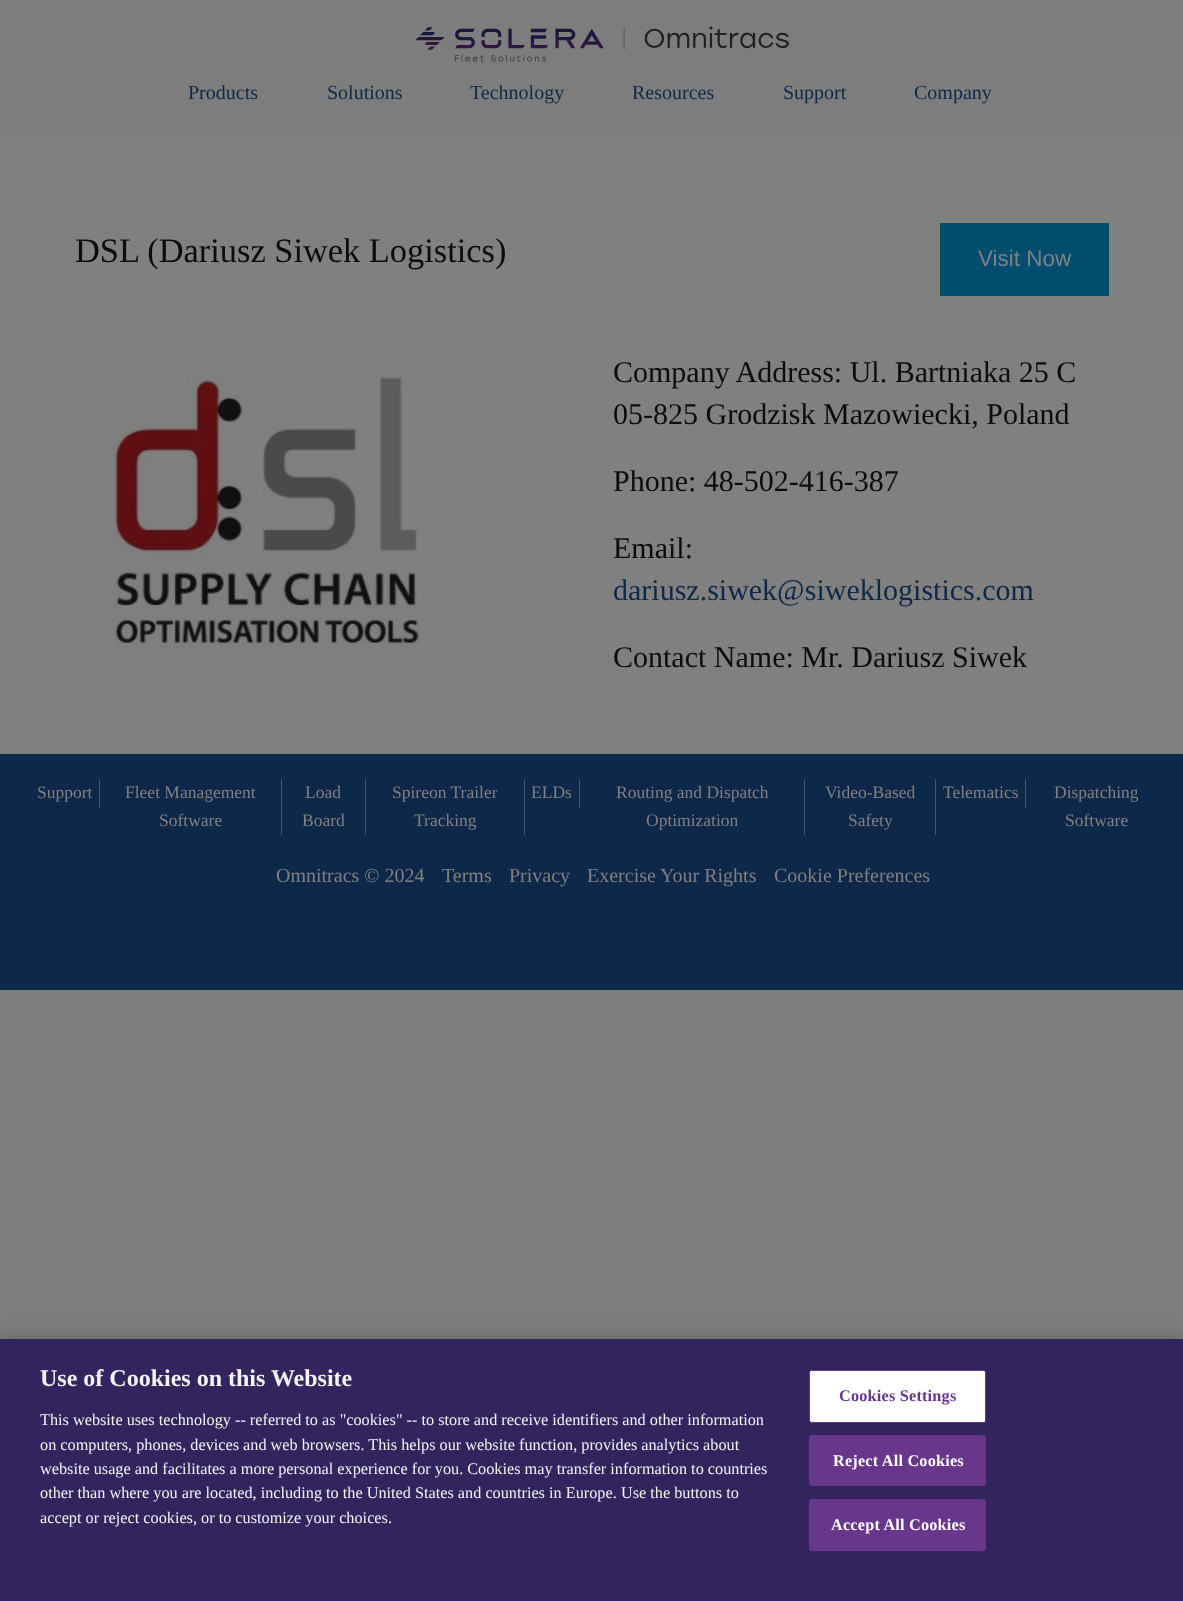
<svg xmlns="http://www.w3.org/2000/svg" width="1183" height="1601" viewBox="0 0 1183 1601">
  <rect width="100%" height="100%" fill="#7d7d7d"/>
  <image x="415" y="26" width="374" height="36" href="img/1.png"/>
  <path d="M0 136h1183v618H0z" fill="#808080"/>
  <path d="M940 223h169v73H940z" fill="#004d6f"/>
  <image x="113" y="375" width="307" height="272" href="img/2.png"/>
  <path d="M0 754h1183v236H0z" fill="#0d2848"/>
  <path d="M99 779h1v29H99z" fill="#465464"/>
  <path d="M281 779h1v56H281z" fill="#465464"/>
  <path d="M365 779h1v56H365z" fill="#465464"/>
  <path d="M524 779h1v56H524z" fill="#465464"/>
  <path d="M579 779h1v29H579z" fill="#465464"/>
  <path d="M804 779h1v56H804z" fill="#465464"/>
  <path d="M935 779h1v56H935z" fill="#465464"/>
  <path d="M1025 779h1v29H1025z" fill="#465464"/>
  <path d="M0 1339h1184v262H0z" fill="#00000033" filter="blur(11px)"/>
  <path d="M0 1339h1183v262H0z" fill="#32255e"/>
  <rect x="809.5" y="1370.5" width="176" height="52" rx="2" fill="#fff" stroke="#68368b"/>
  <rect x="809.5" y="1435.5" width="176" height="50" rx="2" fill="#68368b" stroke="#68368b"/>
  <rect x="809.5" y="1499.5" width="176" height="51" rx="2" fill="#68368b" stroke="#68368b"/>
  <g font-family="Liberation Serif" font-size="20" fill="#0d2848">
    <text x="188" y="99">Products</text>
    <text x="327" y="99">Solutions</text>
    <text x="470" y="99">Technology</text>
    <text x="632" y="99">Resources</text>
    <text x="783" y="99">Support</text>
    <text x="914" y="99">Company</text>
  </g>
  <text x="75" y="262" font-family="Liberation Serif" font-size="34.4" fill="#0c0c0c">DSL (Dariusz Siwek Logistics)</text>
  <text x="978" y="266" font-family="Liberation Sans" font-size="22.5" fill="#808080">Visit Now</text>
  <g font-family="Liberation Serif" font-size="30" fill="#0c0c0c">
    <text x="613" y="382">Company Address: Ul. Bartniaka 25 C</text>
    <text x="613" y="424">05-825 Grodzisk Mazowiecki, Poland</text>
    <text x="613" y="491">Phone: 48-502-416-387</text>
    <text x="613" y="558">Email:</text>
  </g>
  <text x="613" y="600" font-family="Liberation Serif" font-size="30" fill="#0d2848">dariusz.siwek@siweklogistics.com</text>
  <text x="613" y="667" font-family="Liberation Serif" font-size="30" fill="#0c0c0c">Contact Name: Mr. Dariusz Siwek</text>
  <g font-family="Liberation Serif" font-size="17.5" fill="#808080">
    <text x="37" y="798">Support</text>
    <text x="125" y="798">Fleet Management</text>
    <text x="159" y="826">Software</text>
    <text x="305" y="798">Load</text>
    <text x="302" y="826">Board</text>
    <text x="392" y="798">Spireon Trailer</text>
    <text x="414" y="826">Tracking</text>
    <text x="531" y="798">ELDs</text>
    <text x="616" y="798">Routing and Dispatch</text>
    <text x="646" y="826">Optimization</text>
    <text x="825" y="798">Video-Based</text>
    <text x="848" y="826">Safety</text>
    <text x="943" y="798">Telematics</text>
    <text x="1054" y="798">Dispatching</text>
    <text x="1065" y="826">Software</text>
  </g>
  <g font-family="Liberation Serif" font-size="20" fill="#808080">
    <text x="276" y="882">Omnitracs © 2024</text>
    <text x="442" y="882">Terms</text>
    <text x="509" y="882">Privacy</text>
    <text x="587" y="882">Exercise Your Rights</text>
    <text x="774" y="882">Cookie Preferences</text>
  </g>
  <text x="40" y="1386" font-family="Liberation Serif" font-size="24" font-weight="bold" fill="#f1f3f4">Use of Cookies on this Website</text>
  <g font-family="Liberation Serif" font-size="16.25" fill="#f1f3f4">
    <text x="40" y="1425">This website uses technology -- referred to as "cookies" -- to store and receive identifiers and other information</text>
    <text x="40" y="1450">on computers, phones, devices and web browsers. This helps our website function, provides analytics about</text>
    <text x="40" y="1474">website usage and facilitates a more personal experience for you. Cookies may transfer information to countries</text>
    <text x="40" y="1498">other than where you are located, including to the United States and countries in Europe.</text>
    <text x="621" y="1498">Use the buttons to</text>
    <text x="40" y="1523">accept or reject cookies, or to customize your choices.</text>
  </g>
  <text x="839" y="1401" font-family="Liberation Serif" font-size="16.25" font-weight="bold" letter-spacing="0.2" fill="#68368b">Cookies Settings</text>
  <g font-family="Liberation Serif" font-size="16.25" font-weight="bold" letter-spacing="0.2" fill="#fff">
    <text x="833" y="1466">Reject All Cookies</text>
    <text x="831" y="1530">Accept All Cookies</text>
  </g>
</svg>
